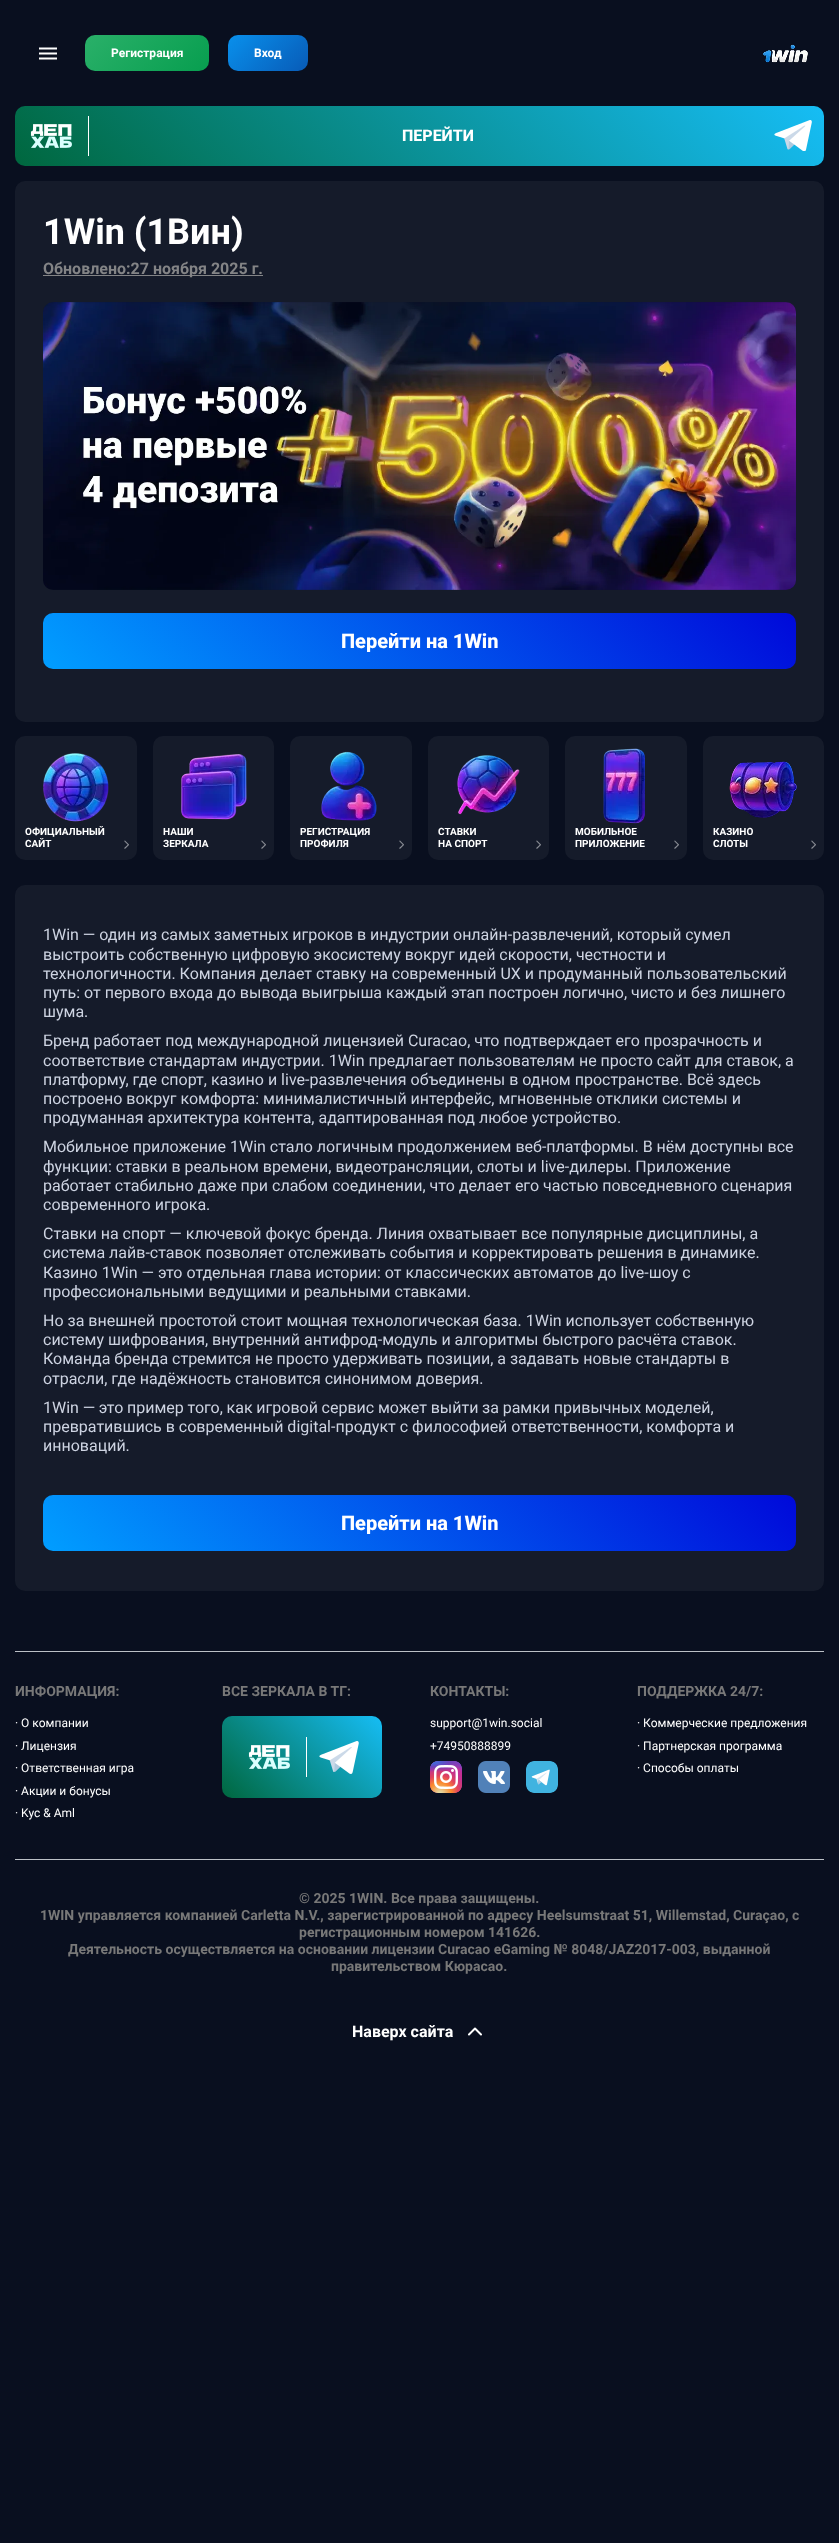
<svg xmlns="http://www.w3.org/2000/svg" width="839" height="2543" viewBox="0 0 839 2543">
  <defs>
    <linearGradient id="g1" gradientUnits="userSpaceOnUse" x1="107" y1="13" x2="187" y2="93"><stop offset="0" stop-color="#2ab069"/><stop offset="1" stop-color="#079e4f"/></linearGradient>
    <linearGradient id="g2" gradientUnits="userSpaceOnUse" x1="239" y1="24" x2="297" y2="82"><stop offset="0" stop-color="#0990ec"/><stop offset="1" stop-color="#085bb7"/></linearGradient>
    <linearGradient id="g3" gradientUnits="userSpaceOnUse" x1="202" y1="353" x2="637" y2="-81"><stop offset="0" stop-color="#00673e"/><stop offset="1" stop-color="#16bdf5"/></linearGradient>
    <linearGradient id="g4" gradientUnits="userSpaceOnUse" x1="217" y1="843" x2="622" y2="439"><stop offset="0" stop-color="#019eff"/><stop offset="1" stop-color="#0009da"/></linearGradient>
    <linearGradient id="g5" gradientUnits="userSpaceOnUse" x1="217" y1="1725" x2="622" y2="1321"><stop offset="0" stop-color="#019eff"/><stop offset="1" stop-color="#0009da"/></linearGradient>
    <linearGradient id="g6" gradientUnits="userSpaceOnUse" x1="242" y1="1818" x2="363" y2="1697"><stop offset="0" stop-color="#00673e"/><stop offset="1" stop-color="#16bdf5"/></linearGradient>
  </defs>
  <rect width="100%" height="100%" fill="#090f1f"/>
  <image x="39" y="47" width="18" height="13" href="img/1.png"/>
  <rect x="85" y="35" width="124" height="36" rx="10" fill="url(#g1)"/>
  <rect x="228" y="35" width="80" height="36" rx="10" fill="url(#g2)"/>
  <image x="763" y="44" width="45" height="19" href="img/2.png"/>
  <rect x="15" y="106" width="809" height="60" rx="10" fill="url(#g3)"/>
  <path d="M88 116h1v40H88z" fill="#fff"/>
  <image x="30" y="124" width="42" height="24" href="img/3.png"/>
  <image x="774" y="120" width="38" height="31" href="img/4.png"/>
  <rect x="15" y="181" width="809" height="541" rx="10" fill="#151b2a"/>
  <path d="M43 275h220v1H43z" fill="#838486"/>
  <image x="43" y="302" width="753" height="288" href="img/5.png"/>
  <rect x="43" y="613" width="753" height="56" rx="10" fill="url(#g4)"/>
  <rect x="15" y="736" width="122" height="124" rx="10" fill="#151b2a"/>
  <image x="43" y="753" width="66" height="69" href="img/6.png"/>
  <image x="124" y="840" width="5" height="9" href="img/7.png"/>
  <rect x="153" y="736" width="121" height="124" rx="10" fill="#151b2a"/>
  <image x="181" y="754" width="66" height="66" href="img/8.png"/>
  <image x="261" y="840" width="5" height="9" href="img/7.png"/>
  <rect x="290" y="736" width="122" height="124" rx="10" fill="#151b2a"/>
  <image x="321" y="751" width="56" height="70" href="img/9.png"/>
  <image x="399" y="840" width="5" height="9" href="img/7.png"/>
  <rect x="428" y="736" width="121" height="124" rx="10" fill="#151b2a"/>
  <image x="457" y="755" width="63" height="60" href="img/10.png"/>
  <image x="536" y="840" width="5" height="9" href="img/7.png"/>
  <rect x="565" y="736" width="122" height="124" rx="10" fill="#151b2a"/>
  <image x="603" y="748" width="42" height="76" href="img/11.png"/>
  <image x="674" y="840" width="5" height="9" href="img/7.png"/>
  <rect x="703" y="736" width="121" height="124" rx="10" fill="#151b2a"/>
  <image x="729" y="761" width="68" height="57" href="img/12.png"/>
  <image x="811" y="840" width="5" height="9" href="img/7.png"/>
  <rect x="15" y="885" width="809" height="706" rx="10" fill="#151b2a"/>
  <rect x="43" y="1495" width="753" height="56" rx="10" fill="url(#g5)"/>
  <path d="M15 1651h809v1H15z" fill="#bbc0c6"/>
  <path d="M15 1859h809v1H15z" fill="#bbc0c6"/>
  <rect x="222" y="1716" width="160" height="82" rx="10" fill="url(#g6)"/>
  <path d="M306 1737h1v40H306z" fill="#fff"/>
  <image x="248" y="1745" width="42" height="24" href="img/13.png"/>
  <image x="319" y="1741" width="40" height="33" href="img/14.png"/>
  <image x="430" y="1761" width="32" height="32" href="img/15.png"/>
  <image x="478" y="1761" width="32" height="32" href="img/16.png"/>
  <image x="526" y="1761" width="32" height="32" href="img/17.png"/>
  <path d="M481 2034.5L475 2028.5L469 2034.5" fill="none" stroke="#fff" stroke-width="2" stroke-linecap="round" stroke-linejoin="round"/>
  <g font-family="Roboto" font-size="12" font-weight="bold" fill="#fff">
    <text x="111" y="57">Регистрация</text>
    <text x="254" y="57">Вход</text>
  </g>
  <text x="402" y="141" font-family="Roboto" font-size="16" font-weight="800" fill="#fff">ПЕРЕЙТИ</text>
  <text x="43" y="244" font-family="Roboto" font-size="36" font-weight="bold" fill="#fff">1Win (1Вин)</text>
  <text x="43" y="274" font-family="Roboto" font-size="16" font-weight="bold" fill="#838486">Обновлено:27 ноября 2025 г.</text>
  <text x="341" y="648" font-family="Roboto" font-size="20" font-weight="800" fill="#fff">Перейти на 1Win</text>
  <g font-family="Roboto" font-size="10" font-weight="bold" fill="#fff">
    <text x="25" y="835">ОФИЦИАЛЬНЫЙ</text>
    <text x="25" y="847">САЙТ</text>
    <text x="163" y="835">НАШИ</text>
    <text x="163" y="847">ЗЕРКАЛА</text>
    <text x="300" y="835">РЕГИСТРАЦИЯ</text>
    <text x="300" y="847">ПРОФИЛЯ</text>
    <text x="438" y="835">СТАВКИ</text>
    <text x="438" y="847">НА СПОРТ</text>
    <text x="575" y="835">МОБИЛЬНОЕ</text>
    <text x="575" y="847">ПРИЛОЖЕНИЕ</text>
    <text x="713" y="835">КАЗИНО</text>
    <text x="713" y="847">СЛОТЫ</text>
  </g>
  <g font-family="Roboto" font-size="16" fill="#ced4e2">
    <text x="43" y="940" word-spacing="-0.1">1Win — один из самых заметных игроков в индустрии онлайн-развлечений, который сумел</text>
    <text x="43" y="960">выстроить собственную цифровую экосистему вокруг идей скорости, честности и</text>
    <text x="43" y="979">технологичности. Компания делает ставку на современный UX и продуманный пользовательский</text>
    <text x="43" y="998">путь: от первого входа до вывода выигрыша каждый этап построен логично, чисто и без лишнего</text>
    <text x="43" y="1017">шума.</text>
    <text x="43" y="1046">Бренд работает под международной лицензией Curacao, что подтверждает его прозрачность и</text>
    <text x="43" y="1066">соответствие стандартам индустрии. 1Win предлагает пользователям не просто сайт для ставок, а</text>
    <text x="43" y="1085">платформу, где спорт, казино и live-развлечения объединены в одном пространстве. Всё здесь</text>
    <text x="43" y="1104">построено вокруг комфорта: минималистичный интерфейс, мгновенные отклики системы и</text>
    <text x="43" y="1123">продуманная архитектура контента, адаптированная под любое устройство.</text>
    <text x="43" y="1152">Мобильное приложение 1Win стало логичным продолжением веб-платформы. В нём доступны все</text>
    <text x="43" y="1172">функции: ставки в реальном времени, видеотрансляции, слоты и live-дилеры. Приложение</text>
    <text x="43" y="1191">работает стабильно даже при слабом соединении, что делает его частью повседневного сценария</text>
    <text x="43" y="1210">современного игрока.</text>
    <text x="43" y="1239">Ставки на спорт — ключевой фокус бренда. Линия охватывает все популярные дисциплины, а</text>
    <text x="43" y="1258">система лайв-ставок позволяет отслеживать события и корректировать решения в динамике.</text>
    <text x="43" y="1278">Казино 1Win — это отдельная глава истории: от классических автоматов до live-шоу с</text>
    <text x="43" y="1297">профессиональными ведущими и реальными ставками.</text>
    <text x="43" y="1326">Но за внешней простотой стоит мощная технологическая база. 1Win использует собственную</text>
    <text x="43" y="1345">систему шифрования, внутренний антифрод-модуль и алгоритмы быстрого расчёта ставок.</text>
    <text x="43" y="1364">Команда бренда стремится не просто удерживать позиции, а задавать новые стандарты в</text>
    <text x="43" y="1384">отрасли, где надёжность становится синонимом доверия.</text>
    <text x="43" y="1413" word-spacing="-0.25">1Win — это пример того, как игровой сервис может выйти за рамки привычных моделей,</text>
    <text x="43" y="1432">превратившись в современный digital-продукт с философией ответственности, комфорта и</text>
    <text x="43" y="1451">инноваций.</text>
  </g>
  <text x="341" y="1530" font-family="Roboto" font-size="20" font-weight="800" fill="#fff">Перейти на 1Win</text>
  <text x="15" y="1696" font-family="Roboto" font-size="14" font-weight="bold" fill="#787878">ИНФОРМАЦИЯ:</text>
  <g font-family="Roboto" font-size="12" fill="#fff">
    <text x="15" y="1727">· О компании</text>
    <text x="15" y="1750">· Лицензия</text>
    <text x="15" y="1772">· Ответственная игра</text>
    <text x="15" y="1795">· Акции и бонусы</text>
    <text x="15" y="1817">· Kyc &amp; Aml</text>
  </g>
  <g font-family="Roboto" font-size="14" font-weight="bold" fill="#787878">
    <text x="222" y="1696">ВСЕ ЗЕРКАЛА В ТГ:</text>
    <text x="430" y="1696">КОНТАКТЫ:</text>
  </g>
  <g font-family="Roboto" font-size="12" fill="#fff">
    <text x="430" y="1727">support@1win.social</text>
    <text x="430" y="1750">+74950888899</text>
  </g>
  <text x="637" y="1696" font-family="Roboto" font-size="14" font-weight="bold" fill="#787878">ПОДДЕРЖКА 24/7:</text>
  <g font-family="Roboto" font-size="12" fill="#fff">
    <text x="637" y="1727">· Коммерческие предложения</text>
    <text x="637" y="1750">· Партнерская программа</text>
    <text x="637" y="1772">· Способы оплаты</text>
  </g>
  <g font-family="Roboto" font-size="14" font-weight="bold" fill="#787878">
    <text x="299" y="1903">© 2025 1WIN. Все права защищены.</text>
    <text x="40" y="1920">1WIN управляется компанией Carletta N.V., зарегистрированной по адресу Heelsumstraat 51, Willemstad, Curaçao, с</text>
    <text x="299" y="1937">регистрационным номером 141626.</text>
    <text x="68" y="1954">Деятельность осуществляется на основании лицензии Curacao eGaming № 8048/JAZ2017-003, выданной</text>
    <text x="331" y="1971">правительством Кюрасао.</text>
  </g>
  <text x="352" y="2037" font-family="Roboto" font-size="16" font-weight="bold" fill="#fff">Наверх сайта</text>
</svg>
